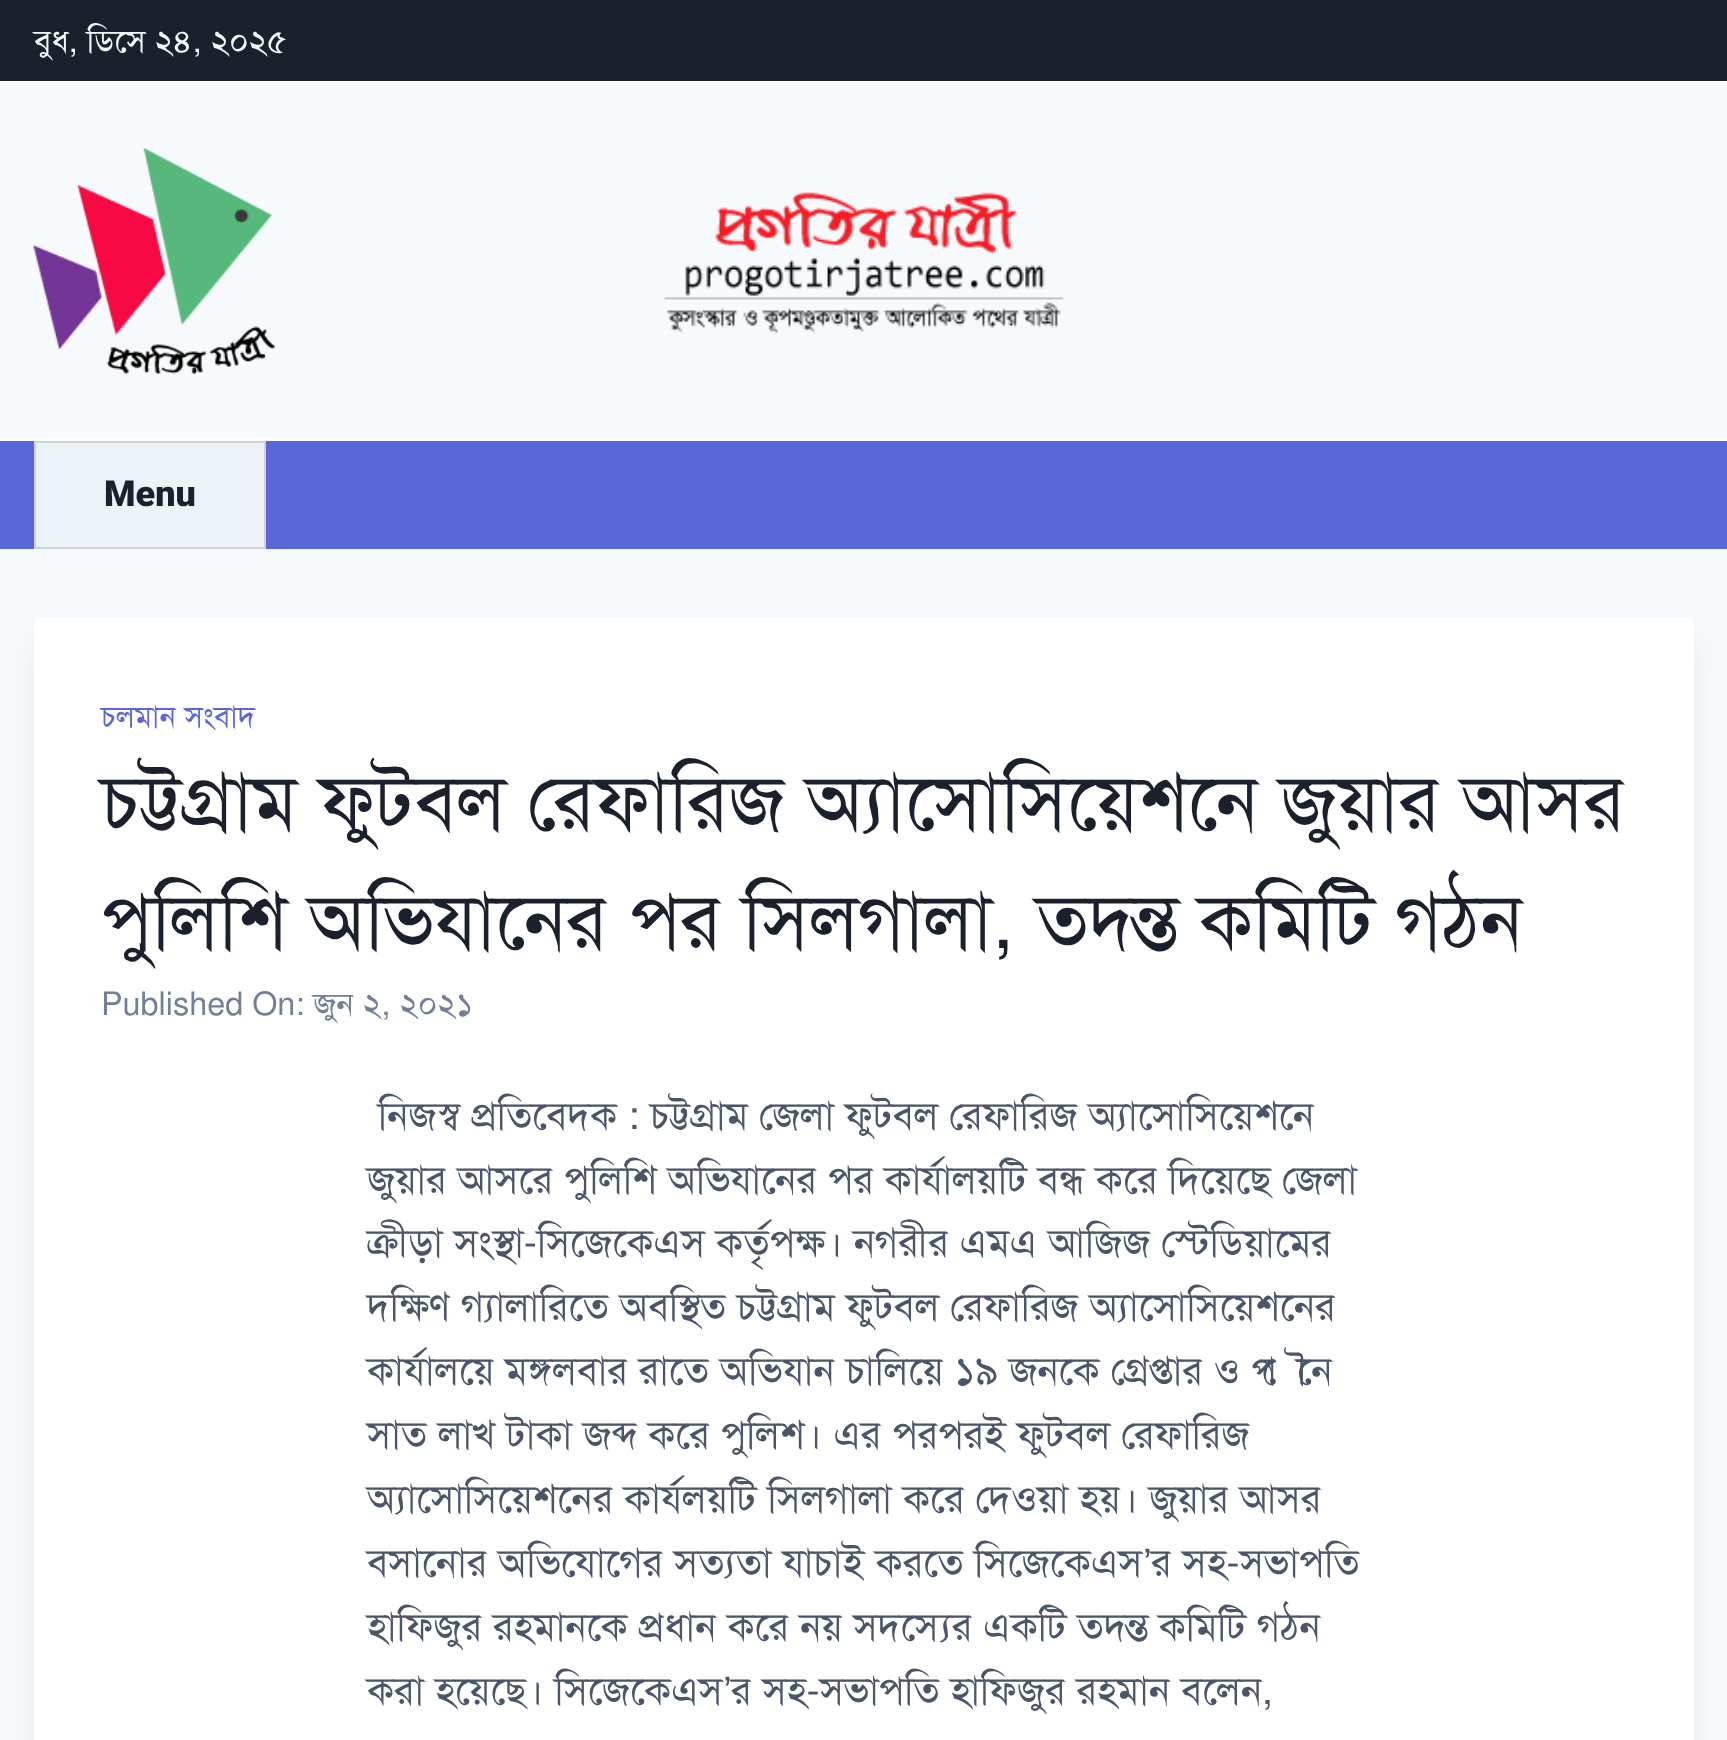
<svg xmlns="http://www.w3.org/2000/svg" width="1727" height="1740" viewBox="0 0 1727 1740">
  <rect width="100%" height="100%" fill="#f7fafc"/>
  <path d="M0 0h1727v81H0z" fill="#1a202c"/>
  <image x="0" y="192" width="1727" height="249" href="img/1.png"/>
  <image x="33" y="148" width="242" height="226" href="img/2.png"/>
  <path d="M0 441h1727v108H0z" fill="#5a67d8"/>
  <path d="M35 442h230v106H35z" fill="#edf2f7" stroke="#cbd5e0" stroke-width="2"/>
  <rect x="41" y="646" width="1647" height="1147" rx="2" fill="#0000001a" filter="blur(17px)"/>
  <rect x="34" y="617" width="1660" height="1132" rx="9" fill="#fff"/>
  <text x="34" y="52" font-family="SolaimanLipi" font-size="32.4" fill="#f7fafc">বুধ, ডিসে ২৪, ২০২৫</text>
  <text x="104" y="506" font-family="Roboto" font-size="36" font-weight="900" fill="#1a202c">Menu</text>
  <text x="101" y="727" font-family="SolaimanLipi" font-size="30.5" fill="#5a67d8">চলমান সংবাদ</text>
  <g font-family="SolaimanLipi" font-size="79.25" fill="#1a202c">
    <text x="101" y="829">চট্টগ্রাম ফুটবল রেফারিজ অ্যাসোসিয়েশনে জুয়ার আসর</text>
    <text x="101" y="948">পুলিশি অভিযানের পর সিলগালা, তদন্ত কমিটি গঠন</text>
  </g>
  <text x="101" y="1015" font-family="SolaimanLipi" font-size="32.4" fill="#718096">Published On: জুন ২, ২০২১</text>
  <g font-family="SolaimanLipi" font-size="39.6" fill="#4a5568">
    <text x="378" y="1129">নিজস্ব প্রতিবেদক : চট্টগ্রাম জেলা ফুটবল রেফারিজ অ্যাসোসিয়েশনে</text>
    <text x="367" y="1193">জুয়ার আসরে পুলিশি অভিযানের পর কার্যালয়টি বন্ধ করে দিয়েছে জেলা</text>
    <text x="367" y="1256">ক্রীড়া সংস্থা-সিজেকেএস কর্তৃপক্ষ। নগরীর এমএ আজিজ স্টেডিয়ামের</text>
    <text x="367" y="1320">দক্ষিণ গ্যালারিতে অবস্থিত চট্টগ্রাম ফুটবল রেফারিজ অ্যাসোসিয়েশনের</text>
    <text x="367" y="1384">কার্যালয়ে মঙ্গলবার রাতে অভিযান চালিয়ে ১৯ জনকে গ্রেপ্তার ও পৌনে</text>
    <text x="367" y="1448">সাত লাখ টাকা জব্দ করে পুলিশ। এর পরপরই ফুটবল রেফারিজ</text>
    <text x="367" y="1512">অ্যাসোসিয়েশনের কার্যলয়টি সিলগালা করে দেওয়া হয়। জুয়ার আসর</text>
    <text x="367" y="1576">বসানোর অভিযোগের সত্যতা যাচাই করতে সিজেকেএস</text>
  </g>
  <text x="1143" y="1576" font-family="Liberation Sans" font-size="39.6" fill="#4a5568">’</text>
  <g font-family="SolaimanLipi" font-size="39.6" fill="#4a5568">
    <text x="1151" y="1576">র সহ-সভাপতি</text>
    <text x="367" y="1640">হাফিজুর রহমানকে প্রধান করে নয় সদস্যের একটি তদন্ত কমিটি গঠন</text>
    <text x="367" y="1704">করা হয়েছে। সিজেকেএস</text>
  </g>
  <text x="723" y="1704" font-family="Liberation Sans" font-size="39.6" fill="#4a5568">’</text>
  <text x="731" y="1704" font-family="SolaimanLipi" font-size="39.6" fill="#4a5568">র সহ-সভাপতি হাফিজুর রহমান বলেন,</text>
</svg>
